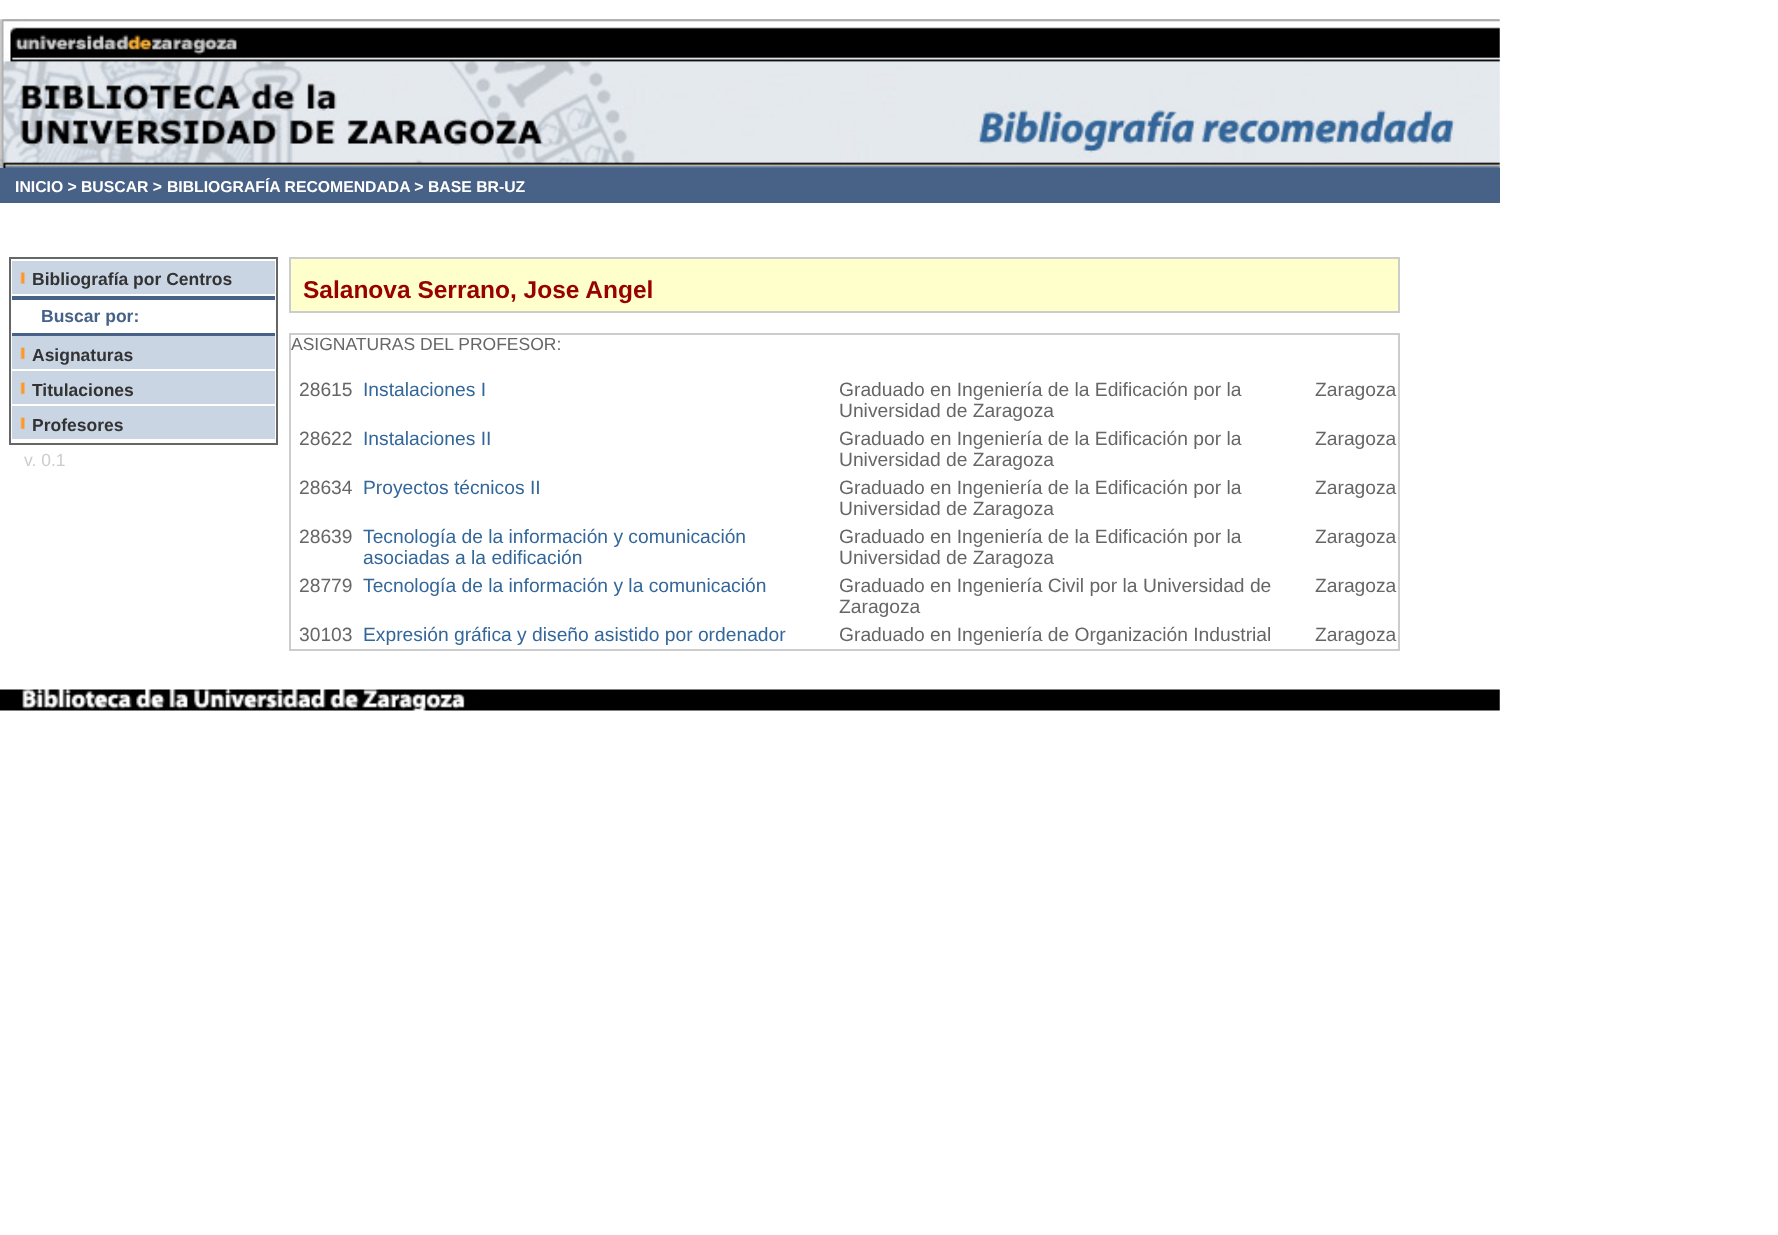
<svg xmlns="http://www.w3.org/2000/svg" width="1778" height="1235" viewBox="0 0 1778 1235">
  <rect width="100%" height="100%" fill="#fff"/>
  <image x="0" y="19" width="1500" height="149" href="img/1.png"/>
  <path d="M0 168h1500v35H0z" fill="#486187"/>
  <path d="M10 258h267v186H10z" fill="none" stroke="#666" stroke-width="2"/>
  <path d="M12 261h263v33H12z" fill="#cad5e4"/>
  <image x="20" y="272" width="5" height="12" href="img/2.png"/>
  <path d="M12 296h263v4H12z" fill="#486187"/>
  <path d="M12 333h263v3H12z" fill="#486187"/>
  <path d="M12 336h263v33H12z" fill="#cad5e4"/>
  <image x="20" y="347" width="5" height="13" href="img/3.png"/>
  <path d="M12 371h263v33H12z" fill="#cad5e4"/>
  <image x="20" y="382" width="5" height="13" href="img/3.png"/>
  <path d="M12 406h263v33H12z" fill="#cad5e4"/>
  <image x="20" y="417" width="5" height="13" href="img/3.png"/>
  <path d="M290 258h1109v54H290z" fill="#ffc" stroke="#ccc" stroke-width="2"/>
  <path d="M290 334h1109v316H290z" fill="none" stroke="#ccc" stroke-width="2"/>
  <image x="0" y="689" width="1500" height="22" href="img/4.png"/>
  <g font-family="Liberation Sans" font-size="15.75" font-weight="bold" fill="#fff">
    <text x="15" y="192">INICIO &gt;</text>
    <text x="81" y="192">BUSCAR &gt;</text>
    <text x="167" y="192">BIBLIOGRAFÍA RECOMENDADA &gt;</text>
    <text x="428" y="192">BASE BR-UZ</text>
  </g>
  <text x="32" y="285" font-family="Liberation Sans" font-size="17.5" font-weight="bold" fill="#333">Bibliografía por Centros</text>
  <text x="41" y="322" font-family="Liberation Sans" font-size="17.5" font-weight="bold" fill="#486187">Buscar por:</text>
  <g font-family="Liberation Sans" font-size="17.5" font-weight="bold" fill="#333">
    <text x="32" y="361">Asignaturas</text>
    <text x="32" y="396">Titulaciones</text>
    <text x="32" y="431">Profesores</text>
  </g>
  <text x="24" y="466" font-family="Liberation Sans" font-size="17.5" fill="#ccc">v. 0.1</text>
  <text x="303" y="298" font-family="Liberation Sans" font-size="24.5" font-weight="bold" fill="#900">Salanova Serrano, Jose Angel</text>
  <text x="291" y="350" font-family="Liberation Sans" font-size="17.5" fill="#666">ASIGNATURAS DEL PROFESOR:</text>
  <text x="299" y="396" font-family="Liberation Sans" font-size="19.25" fill="#666">28615</text>
  <text x="363" y="396" font-family="Liberation Sans" font-size="19.25" fill="#369">Instalaciones I</text>
  <g font-family="Liberation Sans" font-size="19.25" fill="#666">
    <text x="839" y="396">Graduado en Ingeniería de la Edificación por la</text>
    <text x="839" y="417">Universidad de Zaragoza</text>
    <text x="1315" y="396">Zaragoza</text>
    <text x="299" y="445">28622</text>
  </g>
  <text x="363" y="445" font-family="Liberation Sans" font-size="19.25" fill="#369">Instalaciones II</text>
  <g font-family="Liberation Sans" font-size="19.25" fill="#666">
    <text x="839" y="445">Graduado en Ingeniería de la Edificación por la</text>
    <text x="839" y="466">Universidad de Zaragoza</text>
    <text x="1315" y="445">Zaragoza</text>
    <text x="299" y="494">28634</text>
  </g>
  <text x="363" y="494" font-family="Liberation Sans" font-size="19.25" fill="#369">Proyectos técnicos II</text>
  <g font-family="Liberation Sans" font-size="19.25" fill="#666">
    <text x="839" y="494">Graduado en Ingeniería de la Edificación por la</text>
    <text x="839" y="515">Universidad de Zaragoza</text>
    <text x="1315" y="494">Zaragoza</text>
    <text x="299" y="543">28639</text>
  </g>
  <g font-family="Liberation Sans" font-size="19.25" fill="#369">
    <text x="363" y="543">Tecnología de la información y comunicación</text>
    <text x="363" y="564">asociadas a la edificación</text>
  </g>
  <g font-family="Liberation Sans" font-size="19.25" fill="#666">
    <text x="839" y="543">Graduado en Ingeniería de la Edificación por la</text>
    <text x="839" y="564">Universidad de Zaragoza</text>
    <text x="1315" y="543">Zaragoza</text>
    <text x="299" y="592">28779</text>
  </g>
  <text x="363" y="592" font-family="Liberation Sans" font-size="19.25" fill="#369">Tecnología de la información y la comunicación</text>
  <g font-family="Liberation Sans" font-size="19.25" fill="#666">
    <text x="839" y="592">Graduado en Ingeniería Civil por la Universidad de</text>
    <text x="839" y="613">Zaragoza</text>
    <text x="1315" y="592">Zaragoza</text>
    <text x="299" y="641">30103</text>
  </g>
  <text x="363" y="641" font-family="Liberation Sans" font-size="19.25" fill="#369">Expresión gráfica y diseño asistido por ordenador</text>
  <g font-family="Liberation Sans" font-size="19.25" fill="#666">
    <text x="839" y="641">Graduado en Ingeniería de Organización Industrial</text>
    <text x="1315" y="641">Zaragoza</text>
  </g>
</svg>
